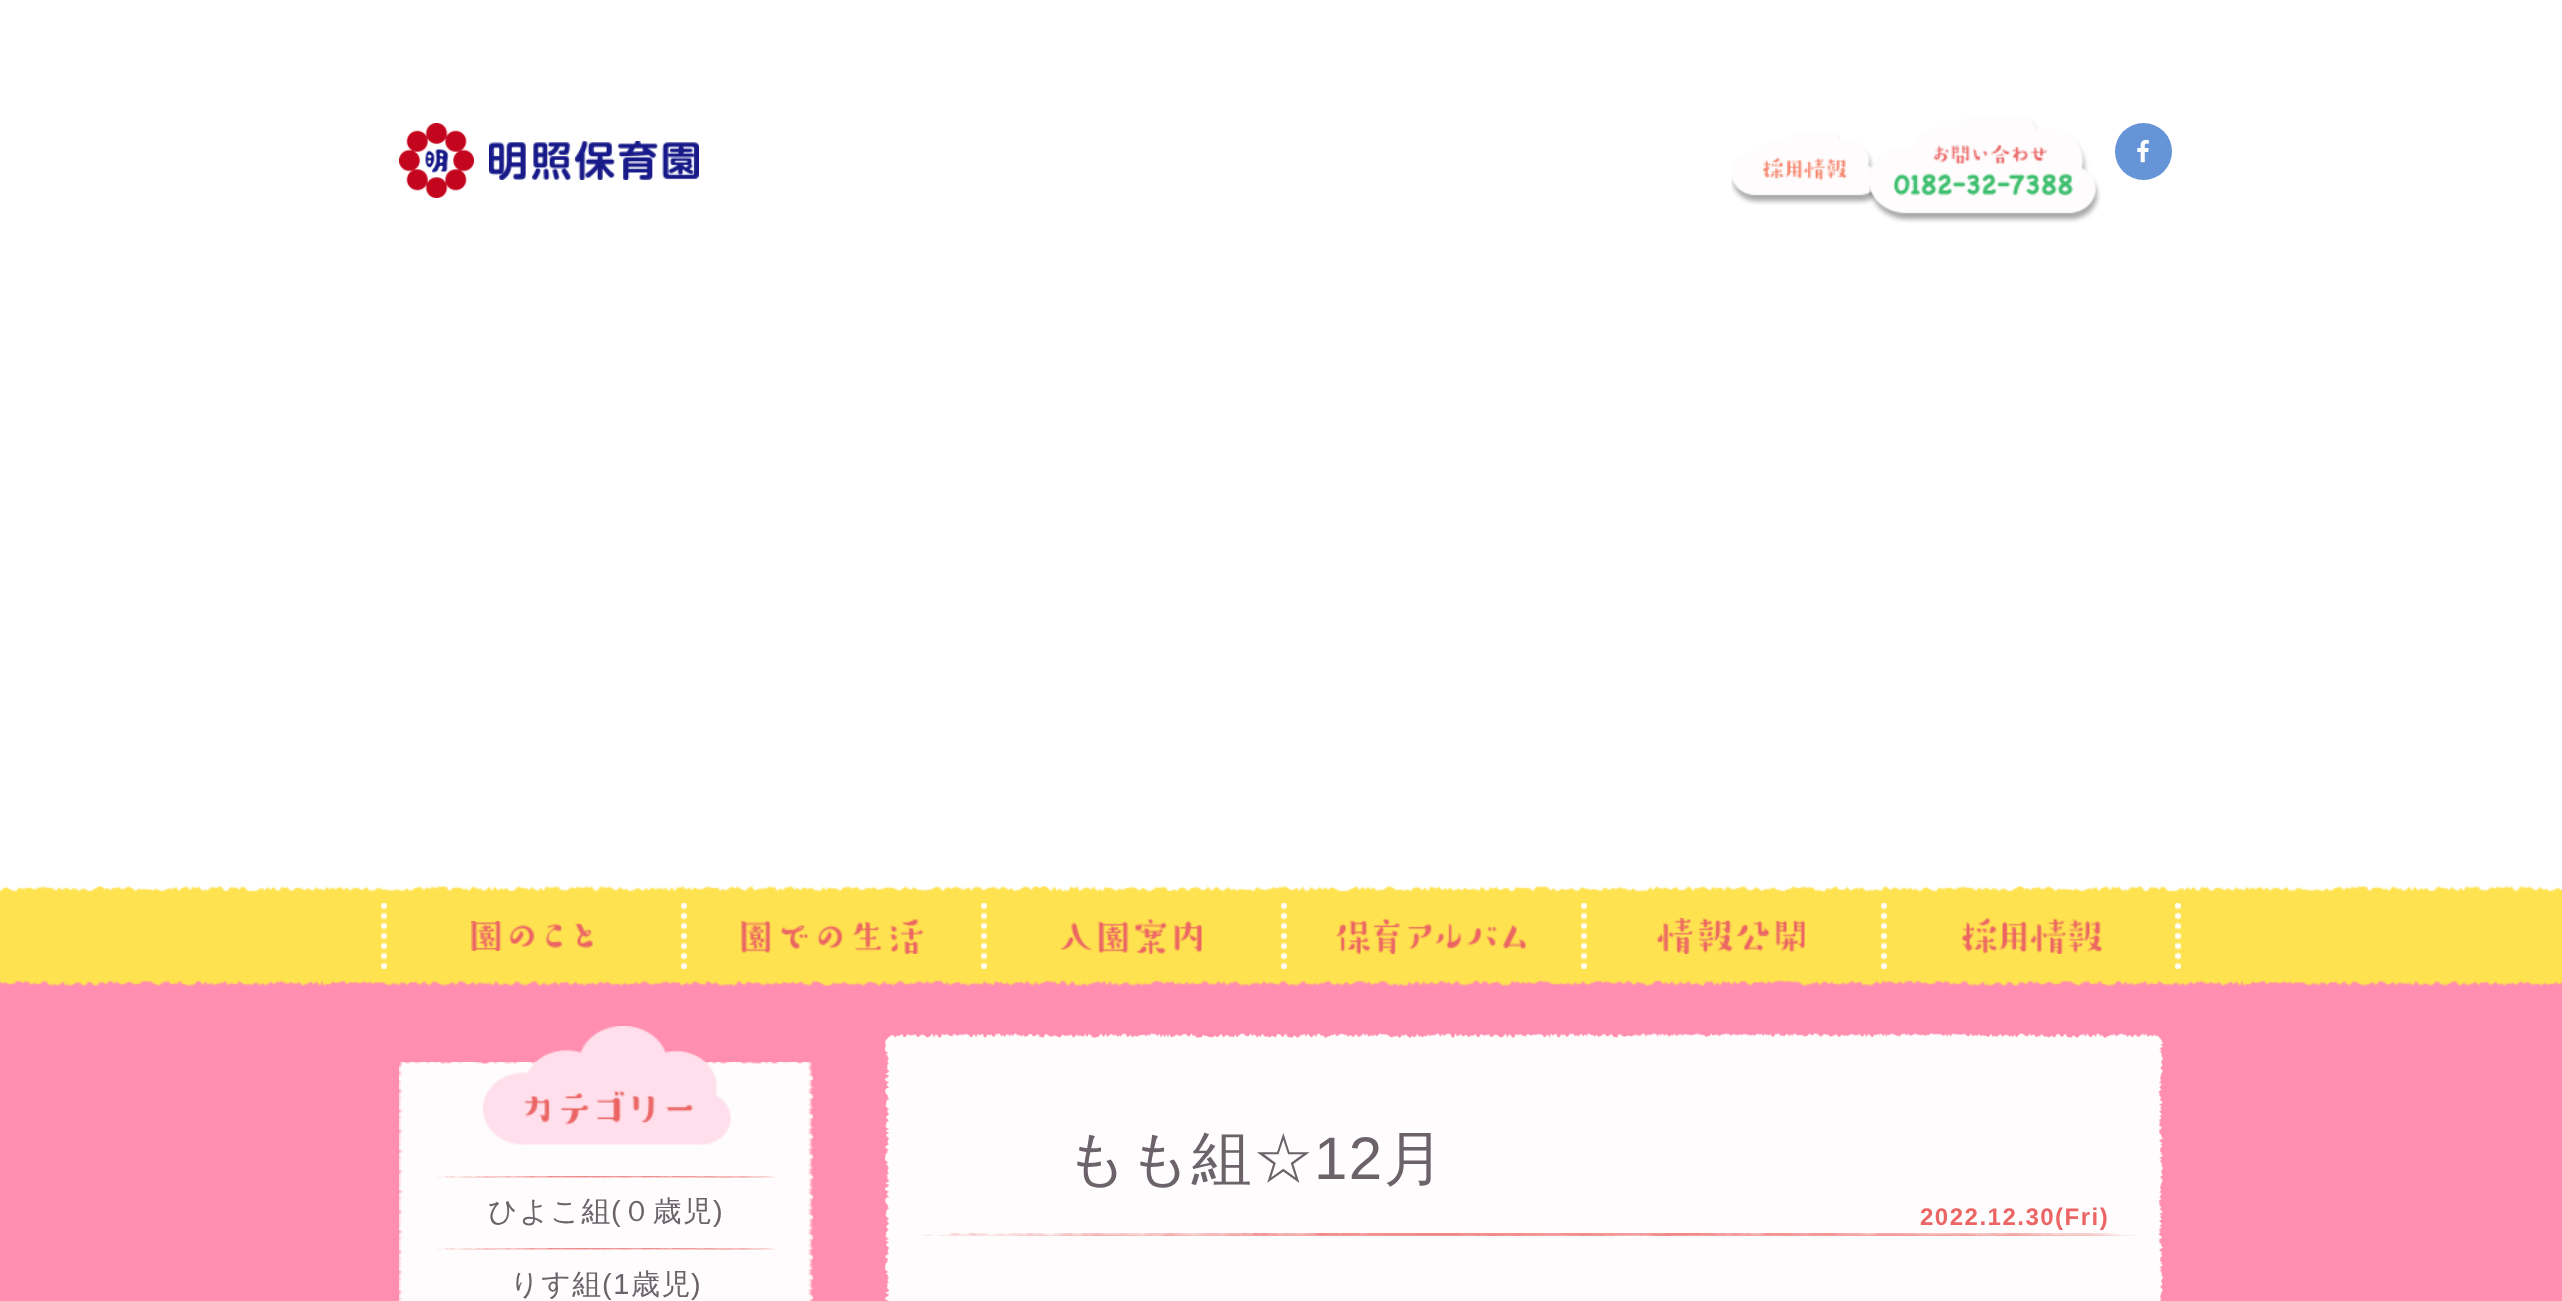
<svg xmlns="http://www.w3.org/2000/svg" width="2562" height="1301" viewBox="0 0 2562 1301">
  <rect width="100%" height="100%" fill="#fff"/>
  <image x="399" y="123" width="75" height="75" href="img/1.png"/>
  <image x="489" y="141" width="210" height="39" href="img/2.png"/>
  <image x="1731" y="133" width="146" height="72" href="img/3.png"/>
  <image x="1869" y="116" width="232" height="107" href="img/4.png"/>
  <circle cx="2143.5" cy="151.5" r="28.5" fill="#6595d6"/>
  <image x="2137" y="139" width="12" height="24" href="img/5.png"/>
  <path d="M0 979h2562v322H0z" fill="#ff8eb0"/>
  <image x="0" y="886" width="2562" height="100" href="img/6.png"/>
  <image x="2175" y="903" width="6" height="66" href="img/7.png"/>
  <image x="381" y="903" width="6" height="66" href="img/8.png"/>
  <image x="471" y="921" width="122" height="30" href="img/9.png"/>
  <image x="681" y="903" width="6" height="66" href="img/7.png"/>
  <image x="741" y="919" width="182" height="35" href="img/10.png"/>
  <image x="981" y="903" width="6" height="66" href="img/7.png"/>
  <image x="1060" y="919" width="142" height="35" href="img/11.png"/>
  <image x="1281" y="903" width="6" height="66" href="img/7.png"/>
  <image x="1336" y="919" width="190" height="35" href="img/12.png"/>
  <image x="1581" y="903" width="6" height="66" href="img/7.png"/>
  <image x="1657" y="918" width="148" height="36" href="img/13.png"/>
  <image x="1881" y="903" width="6" height="66" href="img/8.png"/>
  <image x="1962" y="918" width="140" height="36" href="img/14.png"/>
  <image x="885" y="1044" width="1278" height="257" href="img/15.png"/>
  <image x="885" y="1033" width="1278" height="11" href="img/16.png"/>
  <image x="912" y="1233" width="1224" height="3" href="img/17.png"/>
  <image x="399" y="1080" width="414" height="221" href="img/18.png"/>
  <image x="399" y="1062" width="414" height="18" href="img/20.png"/>
  <image x="483" y="1026" width="248" height="119" href="img/19.png"/>
  <image x="435" y="1176" width="342" height="2" href="img/21.png"/>
  <image x="435" y="1248" width="342" height="2" href="img/21.png"/>
  <text x="1066" y="1179" font-family="WenQuanYi Zen Hei" font-size="60" font-weight="500" letter-spacing="1.5" fill="#6b626a">もも組☆</text>
  <text x="1314" y="1179" font-family="Liberation Sans" font-size="60" letter-spacing="1.5" fill="#6b626a">12</text>
  <text x="1384" y="1179" font-family="WenQuanYi Zen Hei" font-size="60" font-weight="500" letter-spacing="1.5" fill="#6b626a">月</text>
  <text x="1920" y="1225" font-family="Liberation Sans" font-size="24" font-weight="bold" letter-spacing="1.5" fill="#ea6564">2022.12.30(Fri)</text>
  <text x="488" y="1221" font-family="WenQuanYi Zen Hei" font-size="29" font-weight="500" letter-spacing="1.5" fill="#6b626a">ひよこ組</text>
  <text x="611" y="1221" font-family="Liberation Sans" font-size="29" letter-spacing="1.5" fill="#6b626a">(</text>
  <text x="622" y="1221" font-family="WenQuanYi Zen Hei" font-size="29" font-weight="500" letter-spacing="1.5" fill="#6b626a">０歳児</text>
  <text x="713" y="1221" font-family="Liberation Sans" font-size="29" letter-spacing="1.5" fill="#6b626a">)</text>
  <text x="510" y="1294" font-family="WenQuanYi Zen Hei" font-size="29" font-weight="500" letter-spacing="1.5" fill="#6b626a">りす組</text>
  <text x="602" y="1294" font-family="Liberation Sans" font-size="29" letter-spacing="1.5" fill="#6b626a">(1</text>
  <text x="631" y="1294" font-family="WenQuanYi Zen Hei" font-size="29" font-weight="500" letter-spacing="1.5" fill="#6b626a">歳児</text>
  <text x="691" y="1294" font-family="Liberation Sans" font-size="29" letter-spacing="1.5" fill="#6b626a">)</text>
</svg>
